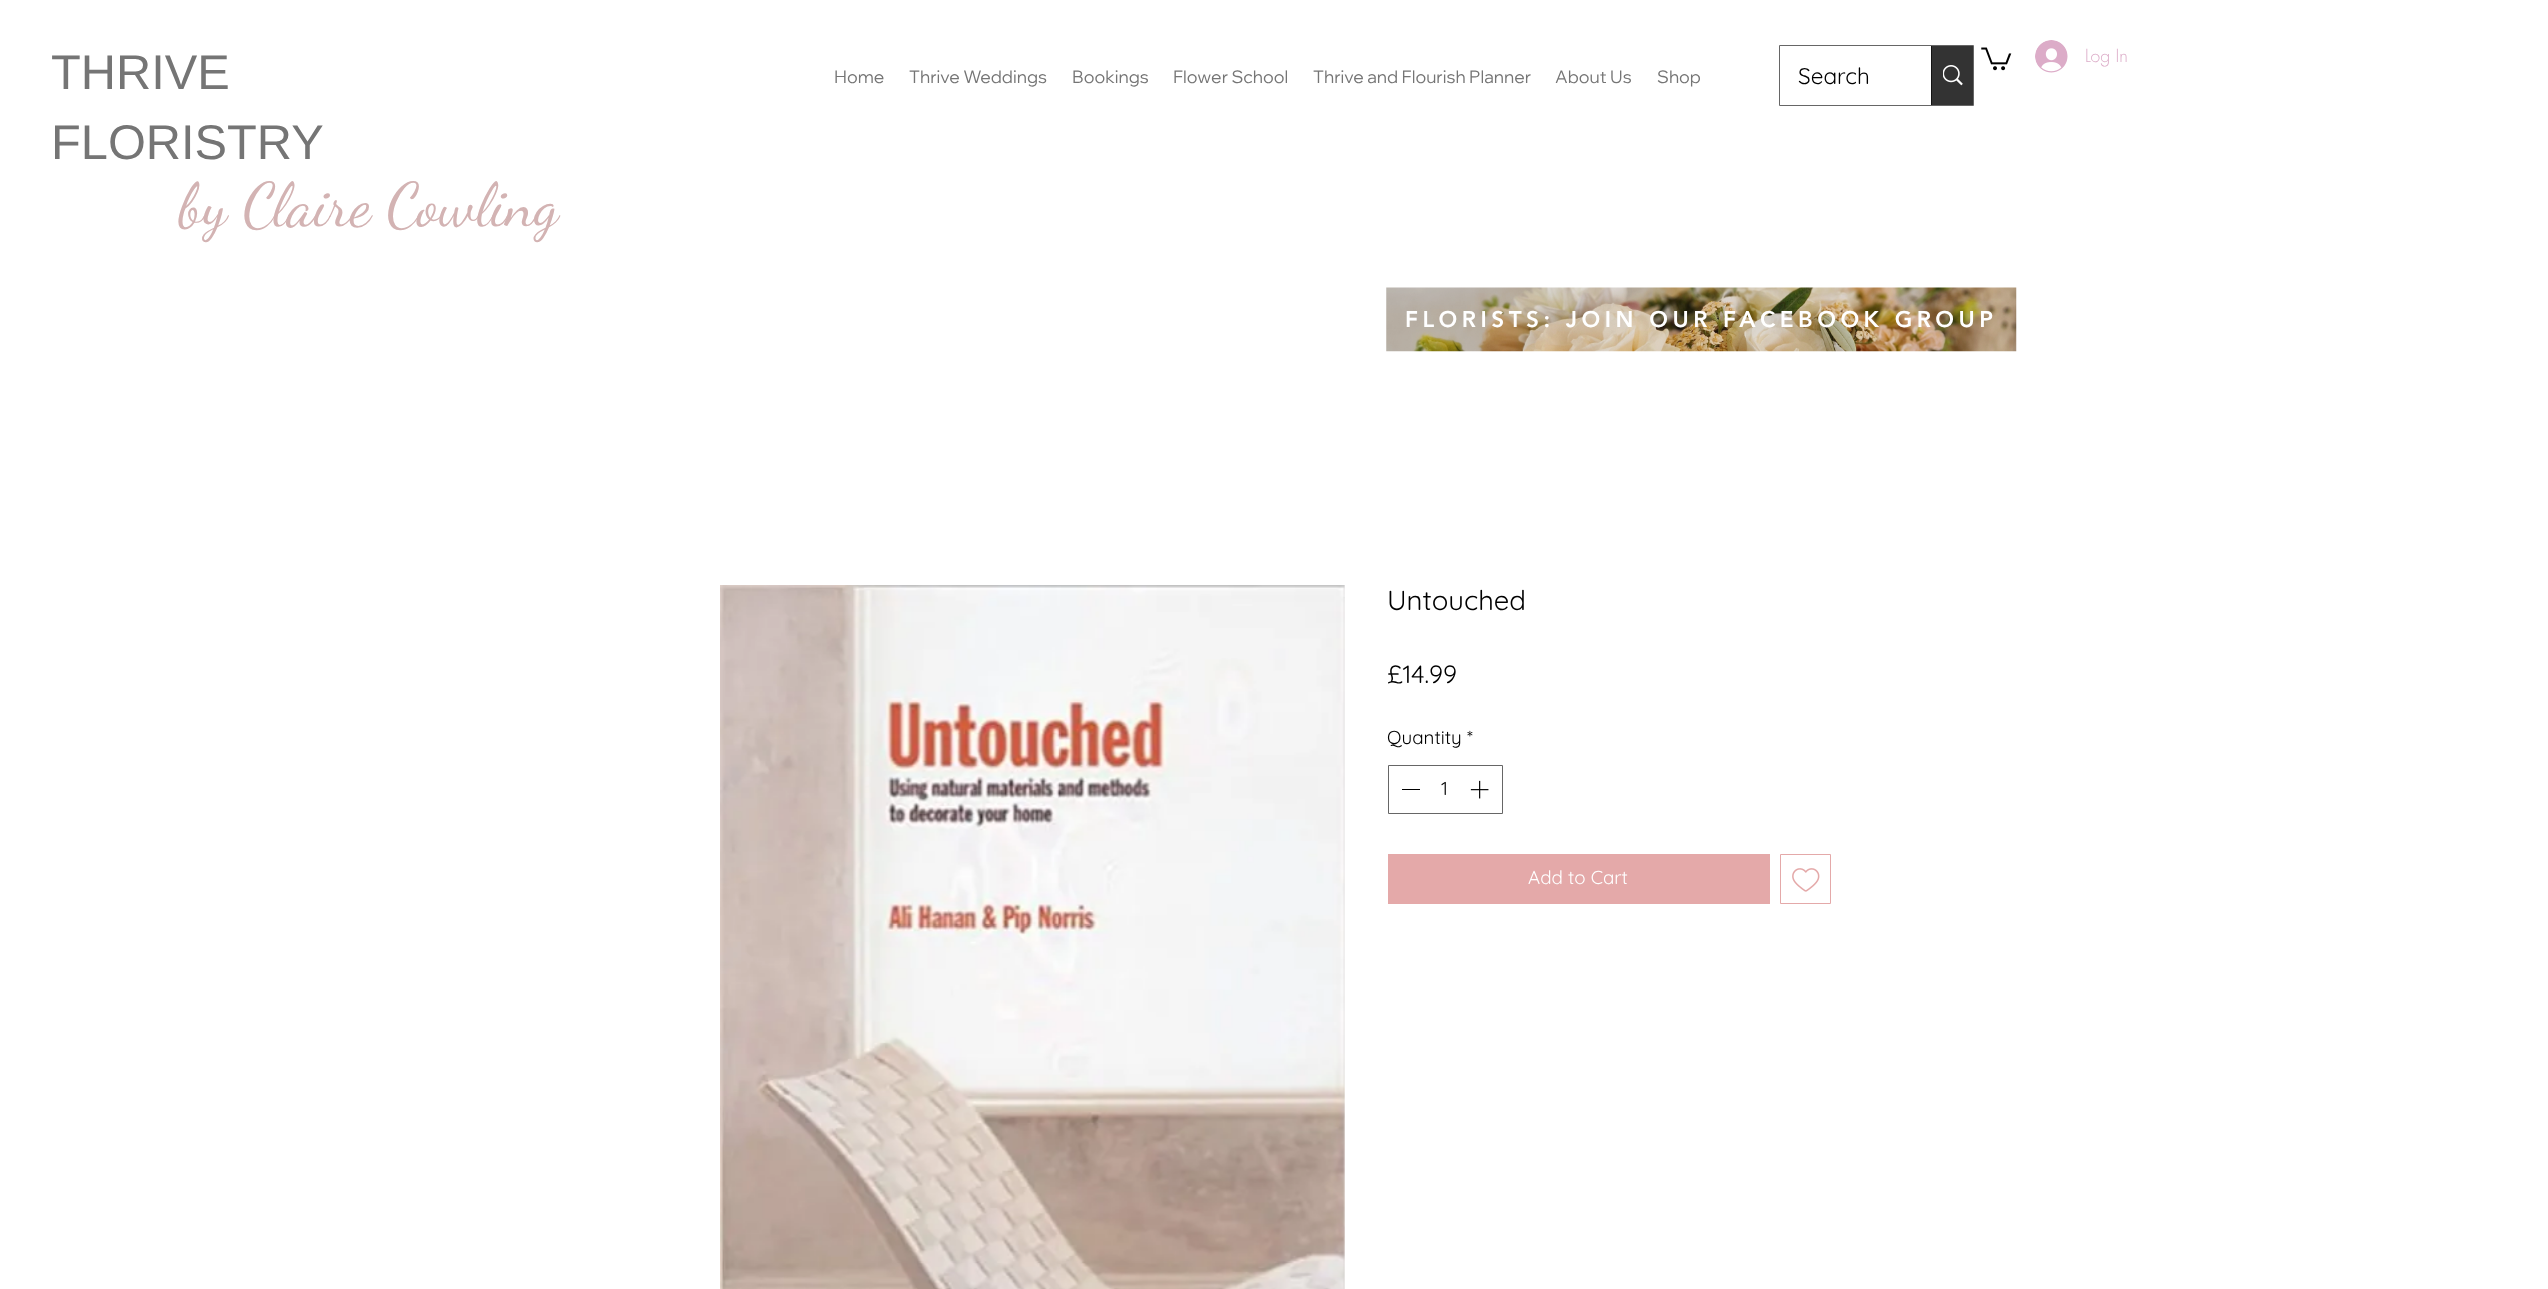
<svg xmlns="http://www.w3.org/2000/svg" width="2548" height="1289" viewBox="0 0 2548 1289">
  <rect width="100%" height="100%" fill="#fff"/>
  <image x="1981" y="47" width="31" height="24" href="img/1.png"/>
  <image x="2035" y="40" width="33" height="33" href="img/2.png"/>
  <path d="M1779.5 45.5h194v60H1779.5z" fill="none" stroke="#666"/>
  <path d="M1932 46h41v59H1932z" fill="#333"/>
  <path d="M1931 46h1v59H1931z" fill="#141414"/>
  <image x="1943" y="65" width="20" height="21" href="img/3.png"/>
  <image x="1386" y="287" width="631" height="65" href="img/4.png"/>
  <image x="720" y="585" width="625" height="704" href="img/5.png"/>
  <path d="M1388.5 765.5h114v48H1388.5z" fill="none" stroke="#666"/>
  <path d="M1402 789h18v1H1402z" fill="#000"/>
  <image x="1470" y="780" width="19" height="19" href="img/6.png"/>
  <path d="M1388 854h382v50H1388z" fill="#e4a9a9"/>
  <path d="M1780.5 854.5h50v49H1780.5z" fill="none" stroke="#e4a9a9"/>
  <image x="1792" y="868" width="28" height="24" href="img/7.png"/>
  <g font-family="Liberation Sans" font-size="48.75" fill="#757575">
    <text x="51" y="89">THRIVE</text>
    <text x="51" y="159">FLORISTRY</text>
  </g>
  <text x="179" y="225" font-family="Dancing Script" font-size="61.25" fill="#d3b3b3">by Claire Cowling</text>
  <text x="2085" y="62" font-family="futura" font-size="17.5" font-weight="300" fill="#dcacc8">Log In</text>
  <g font-family="Wix Madefor Display" font-size="17.5" fill="#757575">
    <text x="834" y="83">Home</text>
    <text x="909" y="83">Thrive Weddings</text>
    <text x="1072" y="83">Bookings</text>
    <text x="1173" y="83">Flower School</text>
    <text x="1313" y="83">Thrive and Flourish Planner</text>
    <text x="1555" y="83">About Us</text>
    <text x="1657" y="83">Shop</text>
  </g>
  <text x="1798" y="84" font-family="Quicksand" font-size="22.5" fill="#000">Search</text>
  <text x="1405" y="327" font-family="'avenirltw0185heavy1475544'" font-size="22.5" font-weight="900" letter-spacing="4.5" fill="#fff">FLORISTS: JOIN OUR FACEBOOK GROUP</text>
  <text x="1387" y="610" font-family="Quicksand" font-size="27.5" fill="#000">Untouched</text>
  <text x="1387" y="683" font-family="Quicksand" font-size="25" fill="#000">£14.99</text>
  <g font-family="Quicksand" font-size="18.75" fill="#000">
    <text x="1387" y="744">Quantity *</text>
    <text x="1441" y="795">1</text>
  </g>
  <text x="1528" y="884" font-family="Quicksand" font-size="18.75" fill="#fff">Add to Cart</text>
</svg>
